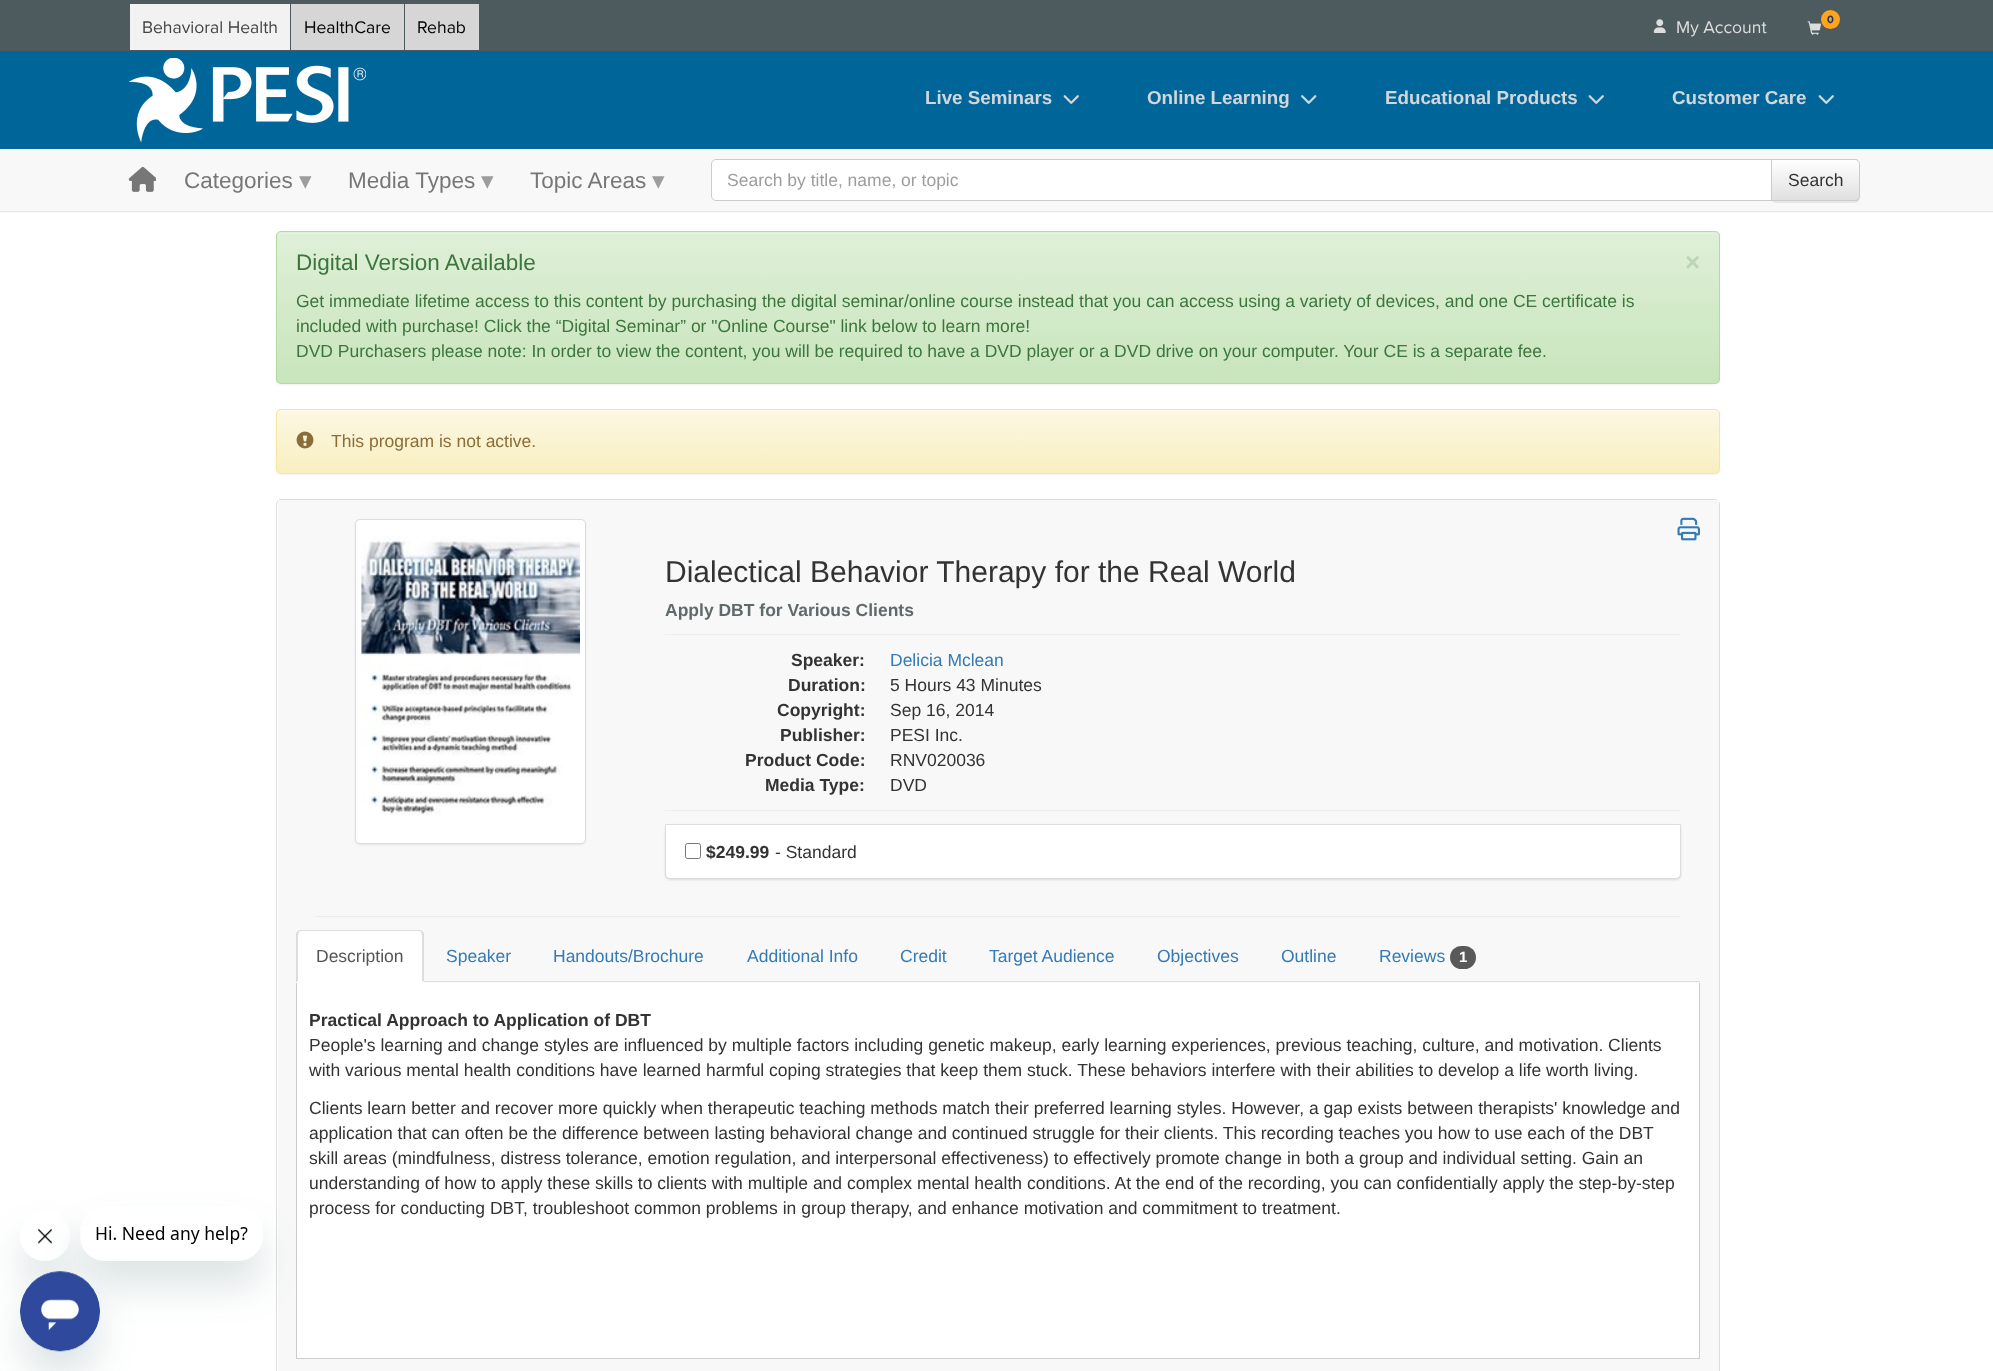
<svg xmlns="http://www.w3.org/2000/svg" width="1993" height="1371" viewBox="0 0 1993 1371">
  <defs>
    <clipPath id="clip1"><path d="M1771 159H1855C1858 159 1860 161 1860 164V196C1860 199 1858 201 1855 201H1771Z"/></clipPath>
    <linearGradient id="g1" gradientUnits="userSpaceOnUse" x1="1816" y1="160" x2="1816" y2="200"><stop offset="0" stop-color="#fff"/><stop offset="1" stop-color="#e0e0e0"/></linearGradient>
    <clipPath id="clip2"><rect x="276" y="231" width="1444" height="153" rx="5"/></clipPath>
    <linearGradient id="g2" gradientUnits="userSpaceOnUse" x1="998" y1="232" x2="998" y2="383"><stop offset="0" stop-color="#dff0d8"/><stop offset="1" stop-color="#c8e5bc"/></linearGradient>
    <clipPath id="clip3"><rect x="276" y="409" width="1444" height="65" rx="5"/></clipPath>
    <linearGradient id="g3" gradientUnits="userSpaceOnUse" x1="998" y1="410" x2="998" y2="473"><stop offset="0" stop-color="#fcf8e3"/><stop offset="1" stop-color="#f8efc0"/></linearGradient>
    <clipPath id="clip4"><path d="M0 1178H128V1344H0ZM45 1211C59 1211 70 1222 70 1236C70 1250 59 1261 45 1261C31 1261 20 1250 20 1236C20 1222 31 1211 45 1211Z" clip-rule="evenodd"/></clipPath>
    <clipPath id="clip5"><path d="M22 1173H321V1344H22ZM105 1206H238C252 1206 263 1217 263 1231V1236C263 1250 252 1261 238 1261H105C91 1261 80 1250 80 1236V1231C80 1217 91 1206 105 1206Z" clip-rule="evenodd"/></clipPath>
  </defs>
  <rect width="100%" height="100%" fill="#fff"/>
  <path d="M0 0h1993v51H0z" fill="#4e5b5e"/>
  <path d="M130 4h160v46H130z" fill="#f2f2f2"/>
  <path d="M291 4h113v46H291z" fill="#d7d6d6"/>
  <path d="M405 4h74v46H405z" fill="#d7d6d6"/>
  <circle cx="1830.5" cy="19.5" r="9.5" fill="#ffa41c"/>
  <image x="1807" y="21" width="14" height="14" href="img/1.png"/>
  <image x="1653" y="19" width="13" height="14" href="img/2.png"/>
  <path d="M0 51h1993v98H0z" fill="#069"/>
  <image x="129" y="58" width="237" height="85" href="img/3.png"/>
  <image x="1063" y="95" width="16" height="9" href="img/4.png"/>
  <image x="1301" y="95" width="16" height="9" href="img/5.png"/>
  <image x="1588" y="95" width="16" height="9" href="img/4.png"/>
  <image x="1818" y="95" width="16" height="9" href="img/4.png"/>
  <path d="M0 149h1993v64H0z" fill="#f8f8f8"/>
  <path d="M0 211h1993v1H0z" fill="#e7e7e7"/>
  <image x="128" y="166" width="28" height="26" href="img/6.png"/>
  <rect x="711.5" y="159.5" width="1148" height="41" rx="4.5" fill="#fff" stroke="#ccc"/>
  <rect x="1771" y="160" width="89" height="43" rx="5" fill="#00000012" filter="blur(0.5px)"/>
  <g clip-path="url(#clip1)">
    <path d="M1772 160h88v40H1772z" fill="url(#g1)"/>
  </g>
  <path d="M1771.5 159.5H1855C1857.5 159.5 1859.5 161.5 1859.5 164V196C1859.5 198.5 1857.5 200.5 1855 200.5H1771.5Z" fill="none" stroke="#ccc"/>
  <rect x="276" y="233" width="1444" height="152" rx="5" fill="#0000000d" filter="blur(1px)"/>
  <rect x="276" y="231" width="1444" height="153" rx="5" fill="#dff0d8"/>
  <g clip-path="url(#clip2)">
    <path d="M276 233h1444v150H276z" fill="url(#g2)"/>
  </g>
  <path d="M281 234H1715C1717 234 1719 235 1719 238V237C1719 235 1717 233 1715 233H282C280 233 278 235 278 237V238C278 235 279 234 281 234Z" fill="#e7f4e2"/>
  <rect x="276.5" y="231.5" width="1443" height="152" rx="4.5" fill="none" stroke="#b2dba1"/>
  <rect x="276" y="410" width="1444" height="65" rx="5" fill="#0000000d" filter="blur(1px)"/>
  <g clip-path="url(#clip3)">
    <path d="M276 410h1444v63H276z" fill="url(#g3)"/>
  </g>
  <path d="M281 411H1715C1717 411 1719 413 1719 415V414C1719 412 1717 410 1715 410H282C280 410 278 412 278 414V415C278 413 279 411 281 411Z" fill="#fdfaea"/>
  <rect x="276.5" y="409.5" width="1443" height="64" rx="4.5" fill="none" stroke="#f5e79e"/>
  <image x="296" y="431" width="18" height="18" href="img/7.png"/>
  <rect x="276.5" y="499.5" width="1443" height="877" rx="4.5" fill="none" stroke="#ddd"/>
  <path d="M278 500h1441v871H278z" fill="#f8f8f8"/>
  <rect x="355" y="520" width="231" height="325" rx="5" fill="#00000012" filter="blur(1px)"/>
  <rect x="355.5" y="519.5" width="230" height="324" rx="4.5" fill="#fff" stroke="#ddd"/>
  <image x="361" y="535" width="219" height="280" href="img/8.png"/>
  <image x="1677" y="517" width="23" height="24" href="img/9.png"/>
  <path d="M665 634h1016v1H665z" fill="#eee"/>
  <path d="M665 810h1016v1H665z" fill="#eee"/>
  <rect x="665" y="825" width="1016" height="55" rx="5" fill="#0000000d" filter="blur(1px)"/>
  <rect x="665.5" y="824.5" width="1015" height="54" rx="4.5" fill="none" stroke="#ddd"/>
  <rect x="665" y="825" width="1016" height="55" rx="5" fill="#00000012" filter="blur(1px)"/>
  <path d="M665.5 824.5H1680.5V874C1680.5 876.5 1678.5 878.5 1676 878.5H670C667.5 878.5 665.5 876.5 665.5 874Z" fill="#fff" stroke="#ddd"/>
  <rect x="685.5" y="843.5" width="15" height="15" rx="2" fill="none" stroke="#767676"/>
  <path d="M315 916h1366v1H315z" fill="#eee"/>
  <path d="M296 1358h1404v1H296z" fill="#ccc"/>
  <path d="M424 981h1276v1H424z" fill="#ddd"/>
  <path d="M301 930H419C422 930 424 932 424 935V983H296V935C296 932 298 930 301 930Z" fill="#fff"/>
  <path d="M301 930C300 930 298 930 298 931L299 932C299 932 300 931 301 931H419C420 931 421 932 421 932L422 931C422 930 420 930 419 930Z" fill="#ddd"/>
  <path d="M424 982L422 981V935L421 932L422 931L424 933Z" fill="#ddd"/>
  <path d="M296 933L298 931L299 932L298 935V981L297 982H296Z" fill="#ddd"/>
  <rect x="1450" y="946" width="26" height="23" rx="11.5" fill="#595959"/>
  <path d="M297 983h1402v375H297z" fill="#fff"/>
  <path d="M1699 983h1v375H1699z" fill="#ccc"/>
  <path d="M296 983h1v375H296z" fill="#ccc"/>
  <g clip-path="url(#clip4)">
    <rect x="20" y="1236" width="50" height="50" rx="25" fill="#17494d26" filter="blur(19px)"/>
  </g>
  <image x="38" y="1229" width="14" height="15" href="img/11.png"/>
  <g clip-path="url(#clip5)">
    <rect x="80" y="1231" width="183" height="55" rx="25" fill="#17494d26" filter="blur(19px)"/>
  </g>
  <image x="81" y="1226" width="167" height="31" href="img/10.png"/>
  <rect x="20" y="1296" width="80" height="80" rx="40" fill="#17494d26" filter="blur(19px)"/>
  <image x="20" y="1271" width="80" height="81" href="img/12.png"/>
  <text x="142" y="33" font-family="Proxima Nova" font-size="17.5" fill="#444">Behavioral Health</text>
  <g font-family="Proxima Nova" font-size="17.5" fill="#000">
    <text x="304" y="33">HealthCare</text>
    <text x="417" y="33">Rehab</text>
  </g>
  <text x="1827" y="23" font-family="Proxima Nova" font-size="11" font-weight="bold" fill="#1b3270">0</text>
  <text x="1676" y="33" font-family="Proxima Nova" font-size="17.5" fill="#ddd">My Account</text>
  <g font-family="Liberation Sans" font-size="18.75" font-weight="bold" fill="#d3d6da">
    <text x="925" y="104">Live Seminars</text>
    <text x="1147" y="104">Online Learning</text>
    <text x="1385" y="104">Educational Products</text>
    <text x="1672" y="104">Customer Care</text>
  </g>
  <text x="184" y="188" font-family="Liberation Sans" font-size="22.5" fill="#777">Categories</text>
  <text x="299" y="189" font-family="DejaVu Sans" font-size="25" fill="#9d9d9d">▾</text>
  <text x="348" y="188" font-family="Liberation Sans" font-size="22.5" fill="#777">Media Types</text>
  <text x="481" y="189" font-family="DejaVu Sans" font-size="25" fill="#9d9d9d">▾</text>
  <text x="530" y="188" font-family="Liberation Sans" font-size="22.5" fill="#777">Topic Areas</text>
  <text x="652" y="189" font-family="DejaVu Sans" font-size="25" fill="#9d9d9d">▾</text>
  <text x="727" y="186" font-family="Liberation Sans" font-size="17.5" fill="#9d9d9d">Search by title, name, or topic</text>
  <text x="1788" y="186" font-family="Liberation Sans" font-size="17.5" fill="#333">Search</text>
  <text x="296" y="270" font-family="Liberation Sans" font-size="22.5" fill="#3c763d">Digital Version Available</text>
  <text x="1685" y="271" font-family="Liberation Sans" font-size="26" font-weight="bold" fill="#bbd6b4">×</text>
  <g font-family="Liberation Sans" font-size="17.5" fill="#3c763d">
    <text x="296" y="307">Get immediate lifetime access to this content by purchasing the digital seminar/online course instead that you can access using a variety of devices, and one CE certificate is</text>
    <text x="296" y="332">included with purchase! Click the “Digital Seminar” or "Online Course" link below to learn more!</text>
    <text x="296" y="357">DVD Purchasers please note: In order to view the content, you will be required to have a DVD player or a DVD drive on your computer. Your CE is a separate fee.</text>
  </g>
  <text x="331" y="447" font-family="Liberation Sans" font-size="17.5" fill="#8a6d3b">This program is not active.</text>
  <text x="665" y="582" font-family="Liberation Sans" font-size="30" fill="#333">Dialectical Behavior Therapy for the Real World</text>
  <text x="665" y="616" font-family="Liberation Sans" font-size="17.5" font-weight="bold" fill="#616a6b">Apply DBT for Various Clients</text>
  <text x="791" y="666" font-family="Liberation Sans" font-size="17.5" font-weight="bold" fill="#333">Speaker:</text>
  <text x="890" y="666" font-family="Liberation Sans" font-size="17.5" fill="#337ab7">Delicia Mclean</text>
  <text x="788" y="691" font-family="Liberation Sans" font-size="17.5" font-weight="bold" fill="#333">Duration:</text>
  <text x="890" y="691" font-family="Liberation Sans" font-size="17.5" fill="#333">5 Hours 43 Minutes</text>
  <text x="777" y="716" font-family="Liberation Sans" font-size="17.5" font-weight="bold" fill="#333">Copyright:</text>
  <text x="890" y="716" font-family="Liberation Sans" font-size="17.5" fill="#333">Sep 16, 2014</text>
  <text x="780" y="741" font-family="Liberation Sans" font-size="17.5" font-weight="bold" fill="#333">Publisher:</text>
  <text x="890" y="741" font-family="Liberation Sans" font-size="17.5" fill="#333">PESI Inc.</text>
  <text x="745" y="766" font-family="Liberation Sans" font-size="17.5" font-weight="bold" fill="#333">Product Code:</text>
  <text x="890" y="766" font-family="Liberation Sans" font-size="17.5" fill="#333">RNV020036</text>
  <text x="765" y="791" font-family="Liberation Sans" font-size="17.5" font-weight="bold" fill="#333">Media Type:</text>
  <text x="890" y="791" font-family="Liberation Sans" font-size="17.5" fill="#333">DVD</text>
  <text x="706" y="858" font-family="Liberation Sans" font-size="17.5" font-weight="bold" fill="#333">$249.99</text>
  <text x="775" y="858" font-family="Liberation Sans" font-size="17.5" fill="#333">- Standard</text>
  <text x="316" y="962" font-family="Liberation Sans" font-size="17.5" fill="#555">Description</text>
  <g font-family="Liberation Sans" font-size="17.5" fill="#337ab7">
    <text x="446" y="962">Speaker</text>
    <text x="553" y="962">Handouts/Brochure</text>
    <text x="747" y="962">Additional Info</text>
    <text x="900" y="962">Credit</text>
    <text x="989" y="962">Target Audience</text>
    <text x="1157" y="962">Objectives</text>
    <text x="1281" y="962">Outline</text>
    <text x="1379" y="962">Reviews</text>
  </g>
  <text x="1459" y="962" font-family="Liberation Sans" font-size="15" font-weight="bold" fill="#fff">1</text>
  <text x="309" y="1026" font-family="Liberation Sans" font-size="17.5" font-weight="bold" fill="#333">Practical Approach to Application of DBT</text>
  <g font-family="Liberation Sans" font-size="17.5" fill="#333">
    <text x="309" y="1051">People's learning and change styles are influenced by multiple factors including genetic makeup, early learning experiences, previous teaching, culture, and motivation. Clients</text>
    <text x="309" y="1076">with various mental health conditions have learned harmful coping strategies that keep them stuck. These behaviors interfere with their abilities to develop a life worth living.</text>
    <text x="309" y="1114">Clients learn better and recover more quickly when therapeutic teaching methods match their preferred learning styles. However, a gap exists between therapists' knowledge and</text>
    <text x="309" y="1139">application that can often be the difference between lasting behavioral change and continued struggle for their clients. This recording teaches you how to use each of the DBT</text>
    <text x="309" y="1164">skill areas (mindfulness, distress tolerance, emotion regulation, and interpersonal effectiveness) to effectively promote change in both a group and individual setting. Gain an</text>
    <text x="309" y="1189">understanding of how to apply these skills to clients with multiple and complex mental health conditions. At the end of the recording, you can confidentially apply the step-by-step</text>
    <text x="309" y="1214">process for conducting DBT, troubleshoot common problems in group therapy, and enhance motivation and commitment to treatment.</text>
  </g>
</svg>
